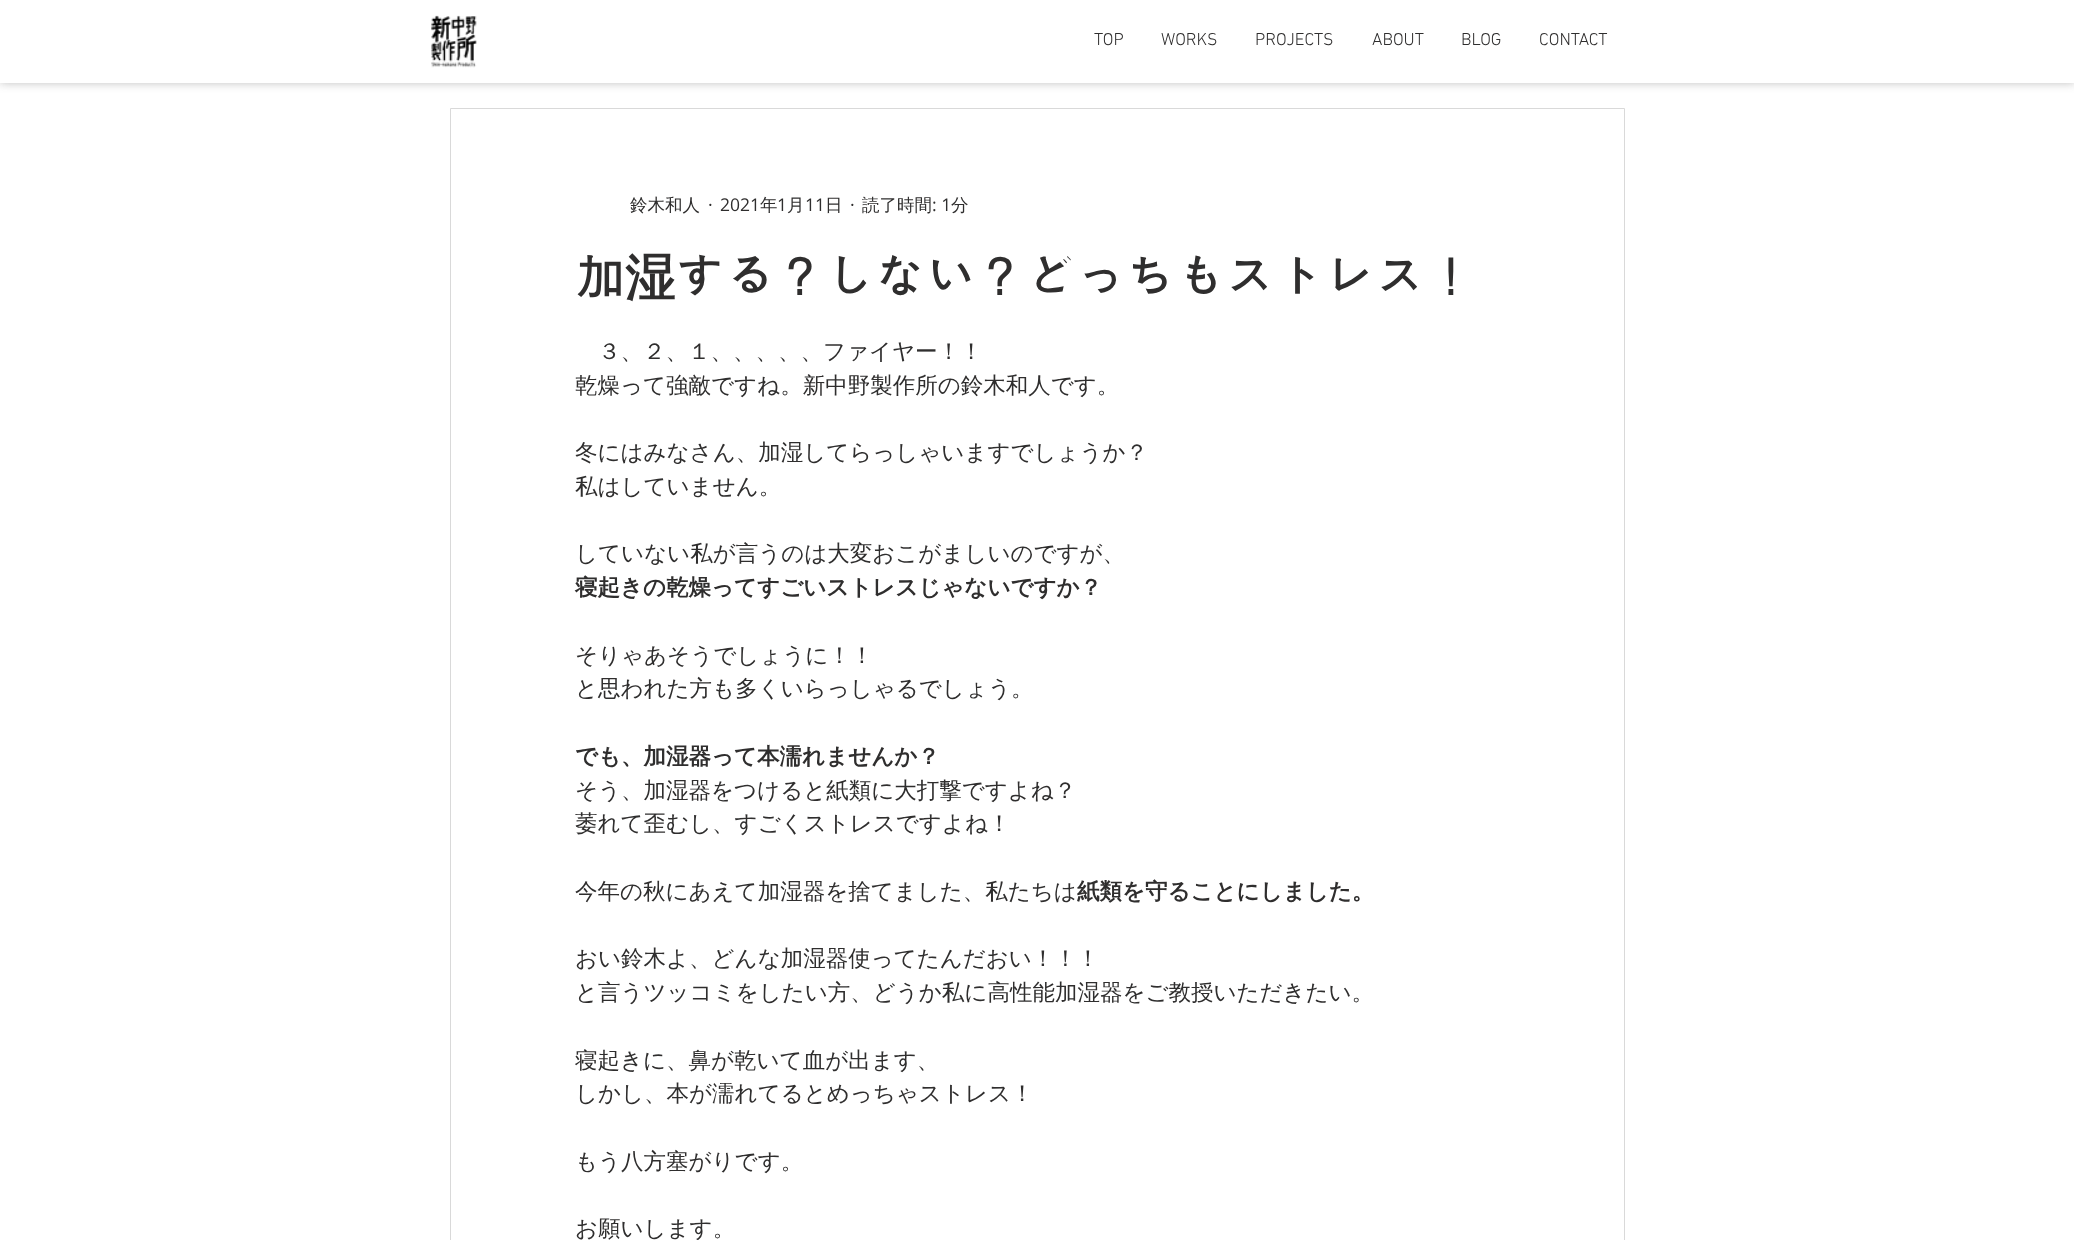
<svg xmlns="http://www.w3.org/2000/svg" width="2074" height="1240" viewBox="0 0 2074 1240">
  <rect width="100%" height="100%" fill="#fff"/>
  <path d="M0 0h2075v83H0z" fill="#2f2e2e4d" filter="blur(5px)"/>
  <path d="M0 0h2074v83H0z" fill="#fff"/>
  <image x="431" y="15" width="46" height="53" href="img/1.png"/>
  <path d="M450.5 108.5h1174v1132H450.5z" fill="none" stroke="#d9d9d9"/>
  <g font-family="'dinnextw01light'" font-size="17.5" font-weight="300" fill="#2f2e2e">
    <text x="1094" y="45">TOP</text>
    <text x="1161" y="45">WORKS</text>
    <text x="1255" y="45">PROJECTS</text>
    <text x="1372" y="45">ABOUT</text>
    <text x="1461" y="45">BLOG</text>
    <text x="1539" y="45">CONTACT</text>
  </g>
  <text x="630" y="211" font-family="WenQuanYi Zen Hei" font-size="17.5" font-weight="500" fill="#2f2e2e">鈴木和人</text>
  <g font-family="Open Sans" font-size="17.5" fill="#2f2e2e">
    <text x="708" y="211">·</text>
    <text x="720" y="211">2021</text>
  </g>
  <text x="760" y="211" font-family="WenQuanYi Zen Hei" font-size="17.5" font-weight="500" fill="#2f2e2e">年</text>
  <text x="777" y="211" font-family="Open Sans" font-size="17.5" fill="#2f2e2e">1</text>
  <text x="787" y="211" font-family="WenQuanYi Zen Hei" font-size="17.5" font-weight="500" fill="#2f2e2e">月</text>
  <text x="805" y="211" font-family="Open Sans" font-size="17.5" fill="#2f2e2e">11</text>
  <text x="825" y="211" font-family="WenQuanYi Zen Hei" font-size="17.5" font-weight="500" fill="#2f2e2e">日</text>
  <text x="850" y="211" font-family="Open Sans" font-size="17.5" fill="#2f2e2e">·</text>
  <text x="862" y="211" font-family="WenQuanYi Zen Hei" font-size="17.5" font-weight="500" fill="#2f2e2e">読了時間</text>
  <text x="932" y="211" font-family="Open Sans" font-size="17.5" fill="#2f2e2e">: 1</text>
  <text x="951" y="211" font-family="WenQuanYi Zen Hei" font-size="17.5" font-weight="500" fill="#2f2e2e">分</text>
  <text x="575" y="295" font-family="Dotum" font-size="50" font-weight="bold" fill="#2f2e2e">加</text>
  <text x="625" y="295" font-family="WenQuanYi Zen Hei" font-size="50" font-weight="bold" fill="#2f2e2e">湿</text>
  <text x="675" y="295" font-family="Dotum" font-size="50" font-weight="bold" fill="#2f2e2e">する？しない？どっちもストレス！</text>
  <g font-family="WenQuanYi Zen Hei" font-size="22.5" font-weight="500" fill="#2f2e2e">
    <text x="598" y="359">３、２、１、、、、、ファイヤー！！</text>
    <text x="575" y="393">乾燥って強敵ですね。新中野製作所の鈴木和人です。</text>
    <text x="575" y="460">冬にはみなさん、加湿してらっしゃいますでしょうか？</text>
    <text x="575" y="494">私はしていません。</text>
    <text x="575" y="561">していない私が言うのは大変おこがましいのですが、</text>
  </g>
  <text x="575" y="595" font-family="WenQuanYi Zen Hei" font-size="22.5" font-weight="bold" fill="#2f2e2e">寝起きの乾燥ってすごいストレスじゃないですか？</text>
  <g font-family="WenQuanYi Zen Hei" font-size="22.5" font-weight="500" fill="#2f2e2e">
    <text x="575" y="663">そりゃあそうでしょうに！！</text>
    <text x="575" y="696">と思われた方も多くいらっしゃるでしょう。</text>
  </g>
  <text x="575" y="764" font-family="WenQuanYi Zen Hei" font-size="22.5" font-weight="bold" fill="#2f2e2e">でも、加湿器って本濡れませんか？</text>
  <g font-family="WenQuanYi Zen Hei" font-size="22.5" font-weight="500" fill="#2f2e2e">
    <text x="575" y="798">そう、加湿器をつけると紙類に大打撃ですよね？</text>
    <text x="575" y="831">萎れて歪むし、すごくストレスですよね！</text>
    <text x="575" y="899">今年の秋にあえて加湿器を捨てました、私たちは</text>
  </g>
  <text x="1077" y="899" font-family="WenQuanYi Zen Hei" font-size="22.5" font-weight="bold" fill="#2f2e2e">紙類を守ることにしました。</text>
  <g font-family="WenQuanYi Zen Hei" font-size="22.5" font-weight="500" fill="#2f2e2e">
    <text x="575" y="966">おい鈴木よ、どんな加湿器使ってたんだおい！！！</text>
    <text x="575" y="1000">と言うツッコミをしたい方、どうか私に高性能加湿器をご教授いただきたい。</text>
    <text x="575" y="1068">寝起きに、鼻が乾いて血が出ます、</text>
    <text x="575" y="1101">しかし、本が濡れてるとめっちゃストレス！</text>
    <text x="575" y="1169">もう八方塞がりです。</text>
    <text x="575" y="1236">お願いします。</text>
  </g>
</svg>
